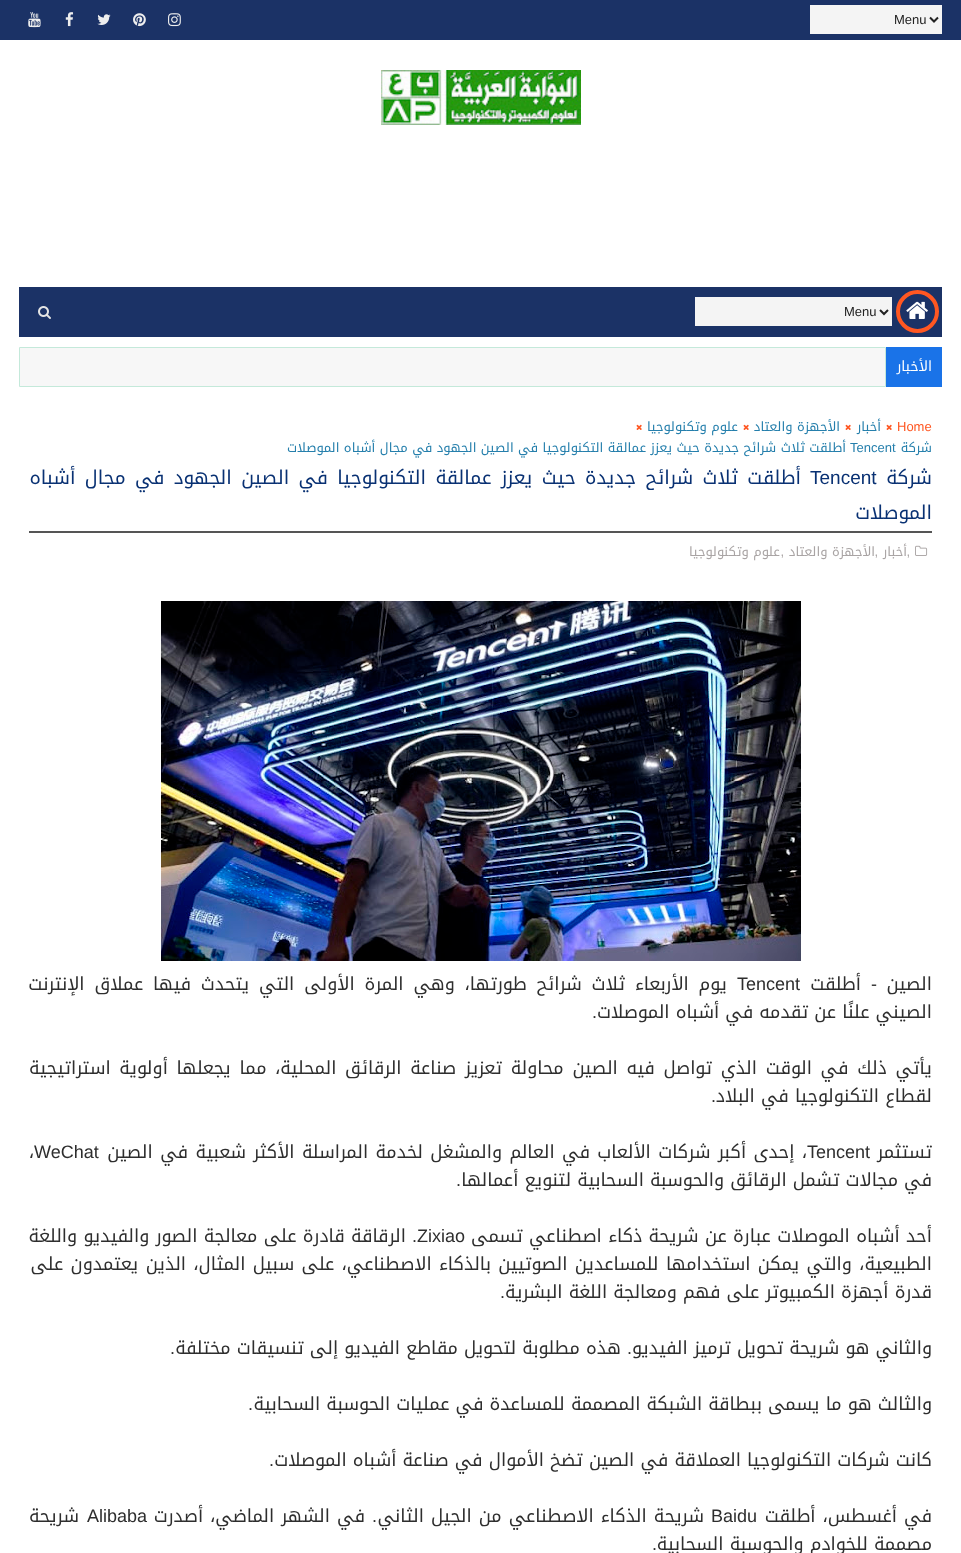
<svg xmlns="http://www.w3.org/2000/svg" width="961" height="1553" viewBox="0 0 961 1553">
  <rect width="100%" height="100%" fill="#fff"/>
  <path d="M0 0h961v40H0z" fill="#1b3266"/>
  <path d="M810 5h132v29H810z" fill="#f4f4f4"/>
  <path d="M930 17.5L934 21.5L938 17.5" fill="none" stroke="#222" stroke-width="2"/>
  <image x="168" y="13" width="13" height="14" href="img/1.png"/>
  <image x="133" y="13" width="13" height="14" href="img/2.png"/>
  <image x="97" y="14" width="14" height="11" href="img/3.png"/>
  <image x="65" y="12" width="9" height="15" href="img/4.png"/>
  <image x="28" y="12" width="13" height="16" href="img/5.png"/>
  <image x="381" y="70" width="200" height="55" href="img/6.png"/>
  <path d="M19 287h923v50H19z" fill="#1b3266"/>
  <circle cx="917.5" cy="311.5" r="19.5" fill="none" stroke="#ff5722" stroke-width="4"/>
  <image x="906" y="301" width="22" height="18" href="img/7.png"/>
  <path d="M695 297h197v29H695z" fill="#f4f4f4"/>
  <path d="M880 310L884 314L888 310" fill="none" stroke="#222" stroke-width="2"/>
  <image x="38" y="306" width="13" height="13" href="img/8.png"/>
  <path d="M886 347h56v40H886z" fill="#1a73e8"/>
  <path d="M19.5 347.5h866v39H19.5z" fill="#f7f7f7" stroke="#c4e9da"/>
  <image x="886" y="424" width="6" height="6" href="img/9.png"/>
  <image x="845" y="424" width="6" height="6" href="img/9.png"/>
  <image x="743" y="424" width="6" height="6" href="img/9.png"/>
  <image x="636" y="424" width="6" height="6" href="img/9.png"/>
  <path d="M29 531h903v2H29z" fill="#555"/>
  <image x="915" y="545" width="13" height="11" href="img/10.png"/>
  <image x="161" y="601" width="640" height="360" href="img/11.png"/>
  <g font-family="Liberation Sans" font-size="13" fill="#222">
    <text x="894" y="24">Menu</text>
    <text x="844" y="316">Menu</text>
  </g>
  <text x="932" y="371" font-family="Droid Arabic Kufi" font-size="14" direction="rtl" fill="#fff">الأخبار</text>
  <text x="897" y="431" font-family="Liberation Sans" font-size="13" fill="#ff5722">Home</text>
  <g font-family="Droid Arabic Kufi" font-size="13" direction="rtl" fill="#257fac">
    <text x="881" y="431">أخبار</text>
    <text x="840" y="431">الأجهزة والعتاد</text>
    <text x="738" y="431">علوم وتكنولوجيا</text>
    <text x="932" y="452">شركة</text>
  </g>
  <text x="850" y="452" font-family="Liberation Sans" font-size="13" fill="#257fac">Tencent</text>
  <text x="846" y="452" font-family="Droid Arabic Kufi" font-size="13" direction="rtl" fill="#257fac">أطلقت ثلاث شرائح جديدة حيث يعزز عمالقة التكنولوجيا في الصين الجهود في مجال أشباه الموصلات</text>
  <text x="932" y="484" font-family="Droid Arabic Kufi" font-size="19" direction="rtl" fill="#093173">شركة</text>
  <text x="810" y="484" font-family="Liberation Sans" font-size="19" fill="#093173">Tencent</text>
  <g font-family="Droid Arabic Kufi" font-size="19" direction="rtl" fill="#093173">
    <text x="801" y="484" word-spacing="2.9">أطلقت ثلاث شرائح جديدة حيث يعزز عمالقة التكنولوجيا في الصين الجهود في مجال أشباه</text>
    <text x="932" y="519">الموصلات</text>
  </g>
  <text x="910" y="556" font-family="Liberation Sans" font-size="13" direction="rtl" fill="#a9a4a4">,</text>
  <text x="907" y="556" font-family="Droid Arabic Kufi" font-size="13" direction="rtl" fill="#a9a4a4">أخبار</text>
  <text x="878" y="556" font-family="Liberation Sans" font-size="13" direction="rtl" fill="#a9a4a4">,</text>
  <text x="875" y="556" font-family="Droid Arabic Kufi" font-size="13" direction="rtl" fill="#a9a4a4">الأجهزة والعتاد</text>
  <text x="784" y="556" font-family="Liberation Sans" font-size="13" direction="rtl" fill="#a9a4a4">,</text>
  <text x="780" y="556" font-family="Droid Arabic Kufi" font-size="13" direction="rtl" fill="#a9a4a4">علوم وتكنولوجيا</text>
  <text x="932" y="990" font-family="Droid Arabic Kufi" font-size="18" direction="rtl" fill="#2e2e2e">الصين</text>
  <text x="877" y="990" font-family="Liberation Sans" font-size="18" direction="rtl" fill="#2e2e2e">-</text>
  <text x="861" y="990" font-family="Droid Arabic Kufi" font-size="18" direction="rtl" fill="#2e2e2e">أطلقت</text>
  <text x="737" y="990" font-family="Liberation Sans" font-size="18" fill="#2e2e2e">Tencent</text>
  <g font-family="Droid Arabic Kufi" font-size="18" direction="rtl" fill="#2e2e2e">
    <text x="727" y="990" word-spacing="3.75">يوم الأربعاء ثلاث شرائح طورتها، وهي المرة الأولى التي يتحدث فيها عملاق الإنترنت</text>
    <text x="932" y="1018">الصيني علنًا عن تقدمه في أشباه الموصلات</text>
  </g>
  <text x="597" y="1018" font-family="Liberation Sans" font-size="18" direction="rtl" fill="#2e2e2e">.</text>
  <g font-family="Droid Arabic Kufi" font-size="18" direction="rtl" fill="#2e2e2e">
    <text x="932" y="1074" word-spacing="2.6">يأتي ذلك في الوقت الذي تواصل فيه الصين محاولة تعزيز صناعة الرقائق المحلية، مما يجعلها أولوية استراتيجية</text>
    <text x="932" y="1102">لقطاع التكنولوجيا في البلاد</text>
  </g>
  <text x="716" y="1102" font-family="Liberation Sans" font-size="18" direction="rtl" fill="#2e2e2e">.</text>
  <text x="932" y="1158" font-family="Droid Arabic Kufi" font-size="18" direction="rtl" fill="#2e2e2e">تستثمر</text>
  <text x="807" y="1158" font-family="Liberation Sans" font-size="18" fill="#2e2e2e">Tencent</text>
  <text x="807" y="1158" word-spacing="1.3" font-family="Droid Arabic Kufi" font-size="18" direction="rtl" fill="#2e2e2e">، إحدى أكبر شركات الألعاب في العالم والمشغل لخدمة المراسلة الأكثر شعبية في الصين</text>
  <text x="34" y="1158" font-family="Liberation Sans" font-size="18" fill="#2e2e2e">WeChat</text>
  <text x="29" y="1158" font-family="Droid Arabic Kufi" font-size="18" fill="#2e2e2e">،</text>
  <text x="932" y="1186" font-family="Droid Arabic Kufi" font-size="18" direction="rtl" fill="#2e2e2e">في مجالات تشمل الرقائق والحوسبة السحابية لتنويع أعمالها</text>
  <text x="461" y="1186" font-family="Liberation Sans" font-size="18" direction="rtl" fill="#2e2e2e">.</text>
  <text x="932" y="1242" word-spacing="0.25" font-family="Droid Arabic Kufi" font-size="18" direction="rtl" fill="#2e2e2e">أحد أشباه الموصلات عبارة عن شريحة ذكاء اصطناعي تسمى</text>
  <text x="417" y="1242" font-family="Liberation Sans" font-size="18" fill="#2e2e2e">Zixiao</text>
  <text x="417" y="1242" font-family="Liberation Sans" font-size="18" direction="rtl" fill="#2e2e2e">.</text>
  <g font-family="Droid Arabic Kufi" font-size="18" direction="rtl" fill="#2e2e2e">
    <text x="406" y="1242" word-spacing="0.25">الرقاقة قادرة على معالجة الصور والفيديو واللغة</text>
    <text x="932" y="1270" word-spacing="1.25">الطبيعية، والتي يمكن استخدامها للمساعدين الصوتيين بالذكاء الاصطناعي، على سبيل المثال، الذين يعتمدون على</text>
    <text x="932" y="1298">قدرة أجهزة الكمبيوتر على فهم ومعالجة اللغة البشرية</text>
  </g>
  <text x="505" y="1298" font-family="Liberation Sans" font-size="18" direction="rtl" fill="#2e2e2e">.</text>
  <text x="932" y="1354" font-family="Droid Arabic Kufi" font-size="18" direction="rtl" fill="#2e2e2e">والثاني هو شريحة تحويل ترميز الفيديو</text>
  <text x="632" y="1354" font-family="Liberation Sans" font-size="18" direction="rtl" fill="#2e2e2e">.</text>
  <text x="621" y="1354" font-family="Droid Arabic Kufi" font-size="18" direction="rtl" fill="#2e2e2e">هذه مطلوبة لتحويل مقاطع الفيديو إلى تنسيقات مختلفة</text>
  <text x="175" y="1354" font-family="Liberation Sans" font-size="18" direction="rtl" fill="#2e2e2e">.</text>
  <text x="932" y="1410" font-family="Droid Arabic Kufi" font-size="18" direction="rtl" fill="#2e2e2e">والثالث هو ما يسمى ببطاقة الشبكة المصممة للمساعدة في عمليات الحوسبة السحابية</text>
  <text x="253" y="1410" font-family="Liberation Sans" font-size="18" direction="rtl" fill="#2e2e2e">.</text>
  <text x="932" y="1466" font-family="Droid Arabic Kufi" font-size="18" direction="rtl" fill="#2e2e2e">كانت شركات التكنولوجيا العملاقة في الصين تضخ الأموال في صناعة أشباه الموصلات</text>
  <text x="274" y="1466" font-family="Liberation Sans" font-size="18" direction="rtl" fill="#2e2e2e">.</text>
  <text x="932" y="1522" word-spacing="1" font-family="Droid Arabic Kufi" font-size="18" direction="rtl" fill="#2e2e2e">في أغسطس، أطلقت</text>
  <text x="711" y="1522" font-family="Liberation Sans" font-size="18" fill="#2e2e2e">Baidu</text>
  <text x="704" y="1522" word-spacing="1" font-family="Droid Arabic Kufi" font-size="18" direction="rtl" fill="#2e2e2e">شريحة الذكاء الاصطناعي من الجيل الثاني</text>
  <text x="377" y="1522" font-family="Liberation Sans" font-size="18" direction="rtl" fill="#2e2e2e">.</text>
  <text x="365" y="1522" word-spacing="1" font-family="Droid Arabic Kufi" font-size="18" direction="rtl" fill="#2e2e2e">في الشهر الماضي، أصدرت</text>
  <text x="87" y="1522" font-family="Liberation Sans" font-size="18" fill="#2e2e2e">Alibaba</text>
  <g font-family="Droid Arabic Kufi" font-size="18" direction="rtl" fill="#2e2e2e">
    <text x="79" y="1522">شريحة</text>
    <text x="932" y="1550">مصممة للخوادم والحوسبة السحابية</text>
  </g>
  <text x="657" y="1550" font-family="Liberation Sans" font-size="18" direction="rtl" fill="#2e2e2e">.</text>
</svg>
